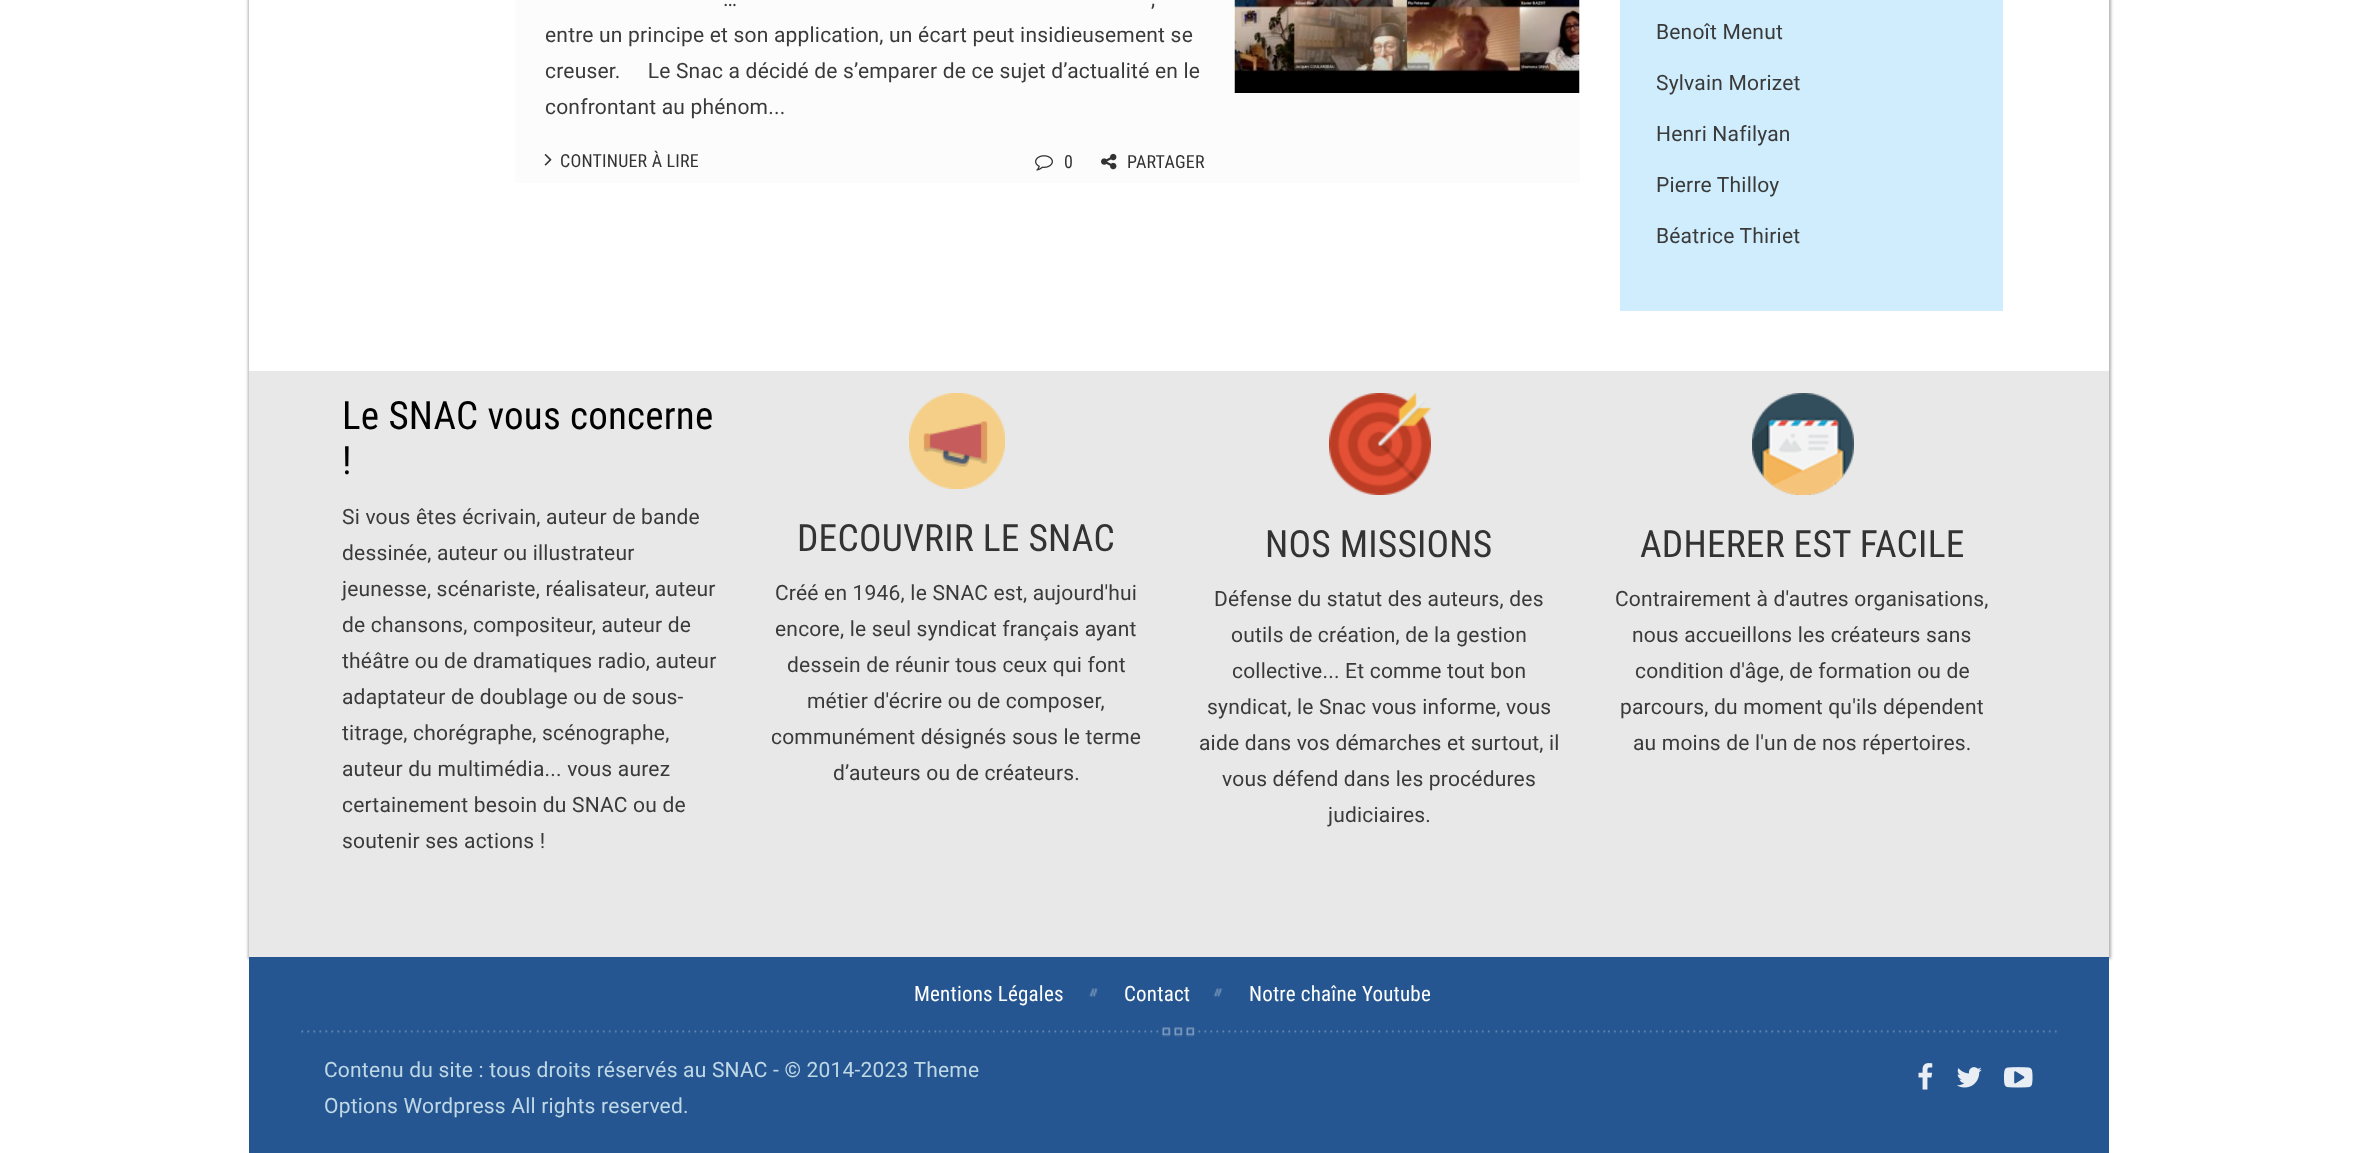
<svg xmlns="http://www.w3.org/2000/svg" width="2358" height="1153" viewBox="0 0 2358 1153">
  <defs>
    <clipPath id="clip1"><path d="M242 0H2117V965H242ZM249-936H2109V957H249Z" clip-rule="evenodd"/></clipPath>
  </defs>
  <rect width="100%" height="100%" fill="#fff"/>
  <g clip-path="url(#clip1)">
    <path d="M248 -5h1863v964H248z" fill="#0000004d" filter="blur(1.5px)"/>
  </g>
  <path d="M515 0h1065v183H515z" fill="#fcfcfc"/>
  <image x="544" y="154" width="8" height="12" href="img/1.png"/>
  <image x="1035" y="155" width="18" height="16" href="img/2.png"/>
  <image x="1101" y="153" width="16" height="17" href="img/3.png"/>
  <image x="1234" y="0" width="346" height="93" href="img/4.png"/>
  <path d="M1620 0h383v311H1620z" fill="#cfedfc"/>
  <path d="M249 371h1860v586H249z" fill="#e8e8e8"/>
  <image x="909" y="393" width="96" height="96" href="img/5.png"/>
  <image x="1329" y="393" width="102" height="102" href="img/6.png"/>
  <image x="1752" y="393" width="102" height="102" href="img/7.png"/>
  <path d="M249 957h1860v196H249z" fill="#255691"/>
  <image x="301" y="1027" width="1756" height="10" href="img/8.png"/>
  <image x="1089" y="988" width="9" height="10" href="img/9.png"/>
  <image x="1213" y="988" width="10" height="10" href="img/10.png"/>
  <image x="1918" y="1063" width="15" height="27" href="img/11.png"/>
  <image x="1957" y="1067" width="25" height="21" href="img/12.png"/>
  <image x="2004" y="1067" width="29" height="21" href="img/13.png"/>
  <g font-family="Roboto" font-size="21" letter-spacing="0.2" fill="#3a3a3a">
    <text x="723" y="6">…</text>
    <text x="1151" y="6">,</text>
    <text x="545" y="42">entre un principe et son application, un écart peut insidieusement se</text>
    <text x="545" y="78" xml:space="preserve">creuser.     Le Snac a décidé de s’emparer de ce sujet d’actualité en le</text>
    <text x="545" y="114">confrontant au phénom...</text>
  </g>
  <g font-family="Roboto Condensed" font-size="18" letter-spacing="0.2" fill="#333">
    <text x="560" y="167">CONTINUER À LIRE</text>
    <text x="1064" y="168">0</text>
    <text x="1127" y="168">PARTAGER</text>
  </g>
  <g font-family="Roboto" font-size="21" letter-spacing="0.2" fill="#3a3a3a">
    <text x="1656" y="39">Benoît Menut</text>
    <text x="1656" y="90">Sylvain Morizet</text>
    <text x="1656" y="141">Henri Nafilyan</text>
    <text x="1656" y="192">Pierre Thilloy</text>
    <text x="1656" y="243">Béatrice Thiriet</text>
  </g>
  <g font-family="Roboto Condensed" font-size="39" letter-spacing="0.2" fill="#000">
    <text x="342" y="429">Le SNAC vous concerne</text>
    <text x="342" y="474">!</text>
  </g>
  <g font-family="Roboto" font-size="21" letter-spacing="0.2" fill="#3a3a3a">
    <text x="342" y="524">Si vous êtes écrivain, auteur de bande</text>
    <text x="342" y="560">dessinée, auteur ou illustrateur</text>
    <text x="342" y="596">jeunesse, scénariste, réalisateur, auteur</text>
    <text x="342" y="632">de chansons, compositeur, auteur de</text>
    <text x="342" y="668">théâtre ou de dramatiques radio, auteur</text>
    <text x="342" y="704">adaptateur de doublage ou de sous-</text>
    <text x="342" y="740">titrage, chorégraphe, scénographe,</text>
    <text x="342" y="776">auteur du multimédia... vous aurez</text>
    <text x="342" y="812">certainement besoin du SNAC ou de</text>
    <text x="342" y="848">soutenir ses actions !</text>
  </g>
  <text x="797" y="551" font-family="Roboto Condensed" font-size="37.5" letter-spacing="0.2" fill="#333">DECOUVRIR LE SNAC</text>
  <g font-family="Roboto" font-size="21" letter-spacing="0.2" fill="#3a3a3a">
    <text x="775" y="600">Créé en 1946, le SNAC est, aujourd'hui</text>
    <text x="775" y="636">encore, le seul syndicat français ayant</text>
    <text x="787" y="672">dessein de réunir tous ceux qui font</text>
    <text x="807" y="708">métier d'écrire ou de composer,</text>
    <text x="771" y="744">communément désignés sous le terme</text>
    <text x="833" y="780">d’auteurs ou de créateurs.</text>
  </g>
  <text x="1265" y="557" font-family="Roboto Condensed" font-size="37.5" letter-spacing="0.2" fill="#333">NOS MISSIONS</text>
  <g font-family="Roboto" font-size="21" letter-spacing="0.2" fill="#3a3a3a">
    <text x="1214" y="606">Défense du statut des auteurs, des</text>
    <text x="1231" y="642">outils de création, de la gestion</text>
    <text x="1232" y="678">collective... Et comme tout bon</text>
    <text x="1207" y="714">syndicat, le Snac vous informe, vous</text>
    <text x="1199" y="750">aide dans vos démarches et surtout, il</text>
    <text x="1222" y="786">vous défend dans les procédures</text>
    <text x="1328" y="822">judiciaires.</text>
  </g>
  <text x="1640" y="557" font-family="Roboto Condensed" font-size="37.5" letter-spacing="0.2" fill="#333">ADHERER EST FACILE</text>
  <g font-family="Roboto" font-size="21" letter-spacing="0.2" fill="#3a3a3a">
    <text x="1615" y="606">Contrairement à d'autres organisations,</text>
    <text x="1632" y="642">nous accueillons les créateurs sans</text>
    <text x="1635" y="678">condition d'âge, de formation ou de</text>
    <text x="1620" y="714">parcours, du moment qu'ils dépendent</text>
    <text x="1633" y="750">au moins de l'un de nos répertoires.</text>
  </g>
  <g font-family="Roboto Condensed" font-size="21" letter-spacing="0.2" fill="#fefefd">
    <text x="914" y="1001">Mentions Légales</text>
    <text x="1124" y="1001">Contact</text>
    <text x="1249" y="1001">Notre chaîne Youtube</text>
  </g>
  <g font-family="Roboto" font-size="21" letter-spacing="0.2" fill="#bfd8e6">
    <text x="324" y="1077">Contenu du site : tous droits réservés au SNAC - © 2014-2023 Theme</text>
    <text x="324" y="1113">Options Wordpress All rights reserved.</text>
  </g>
</svg>
